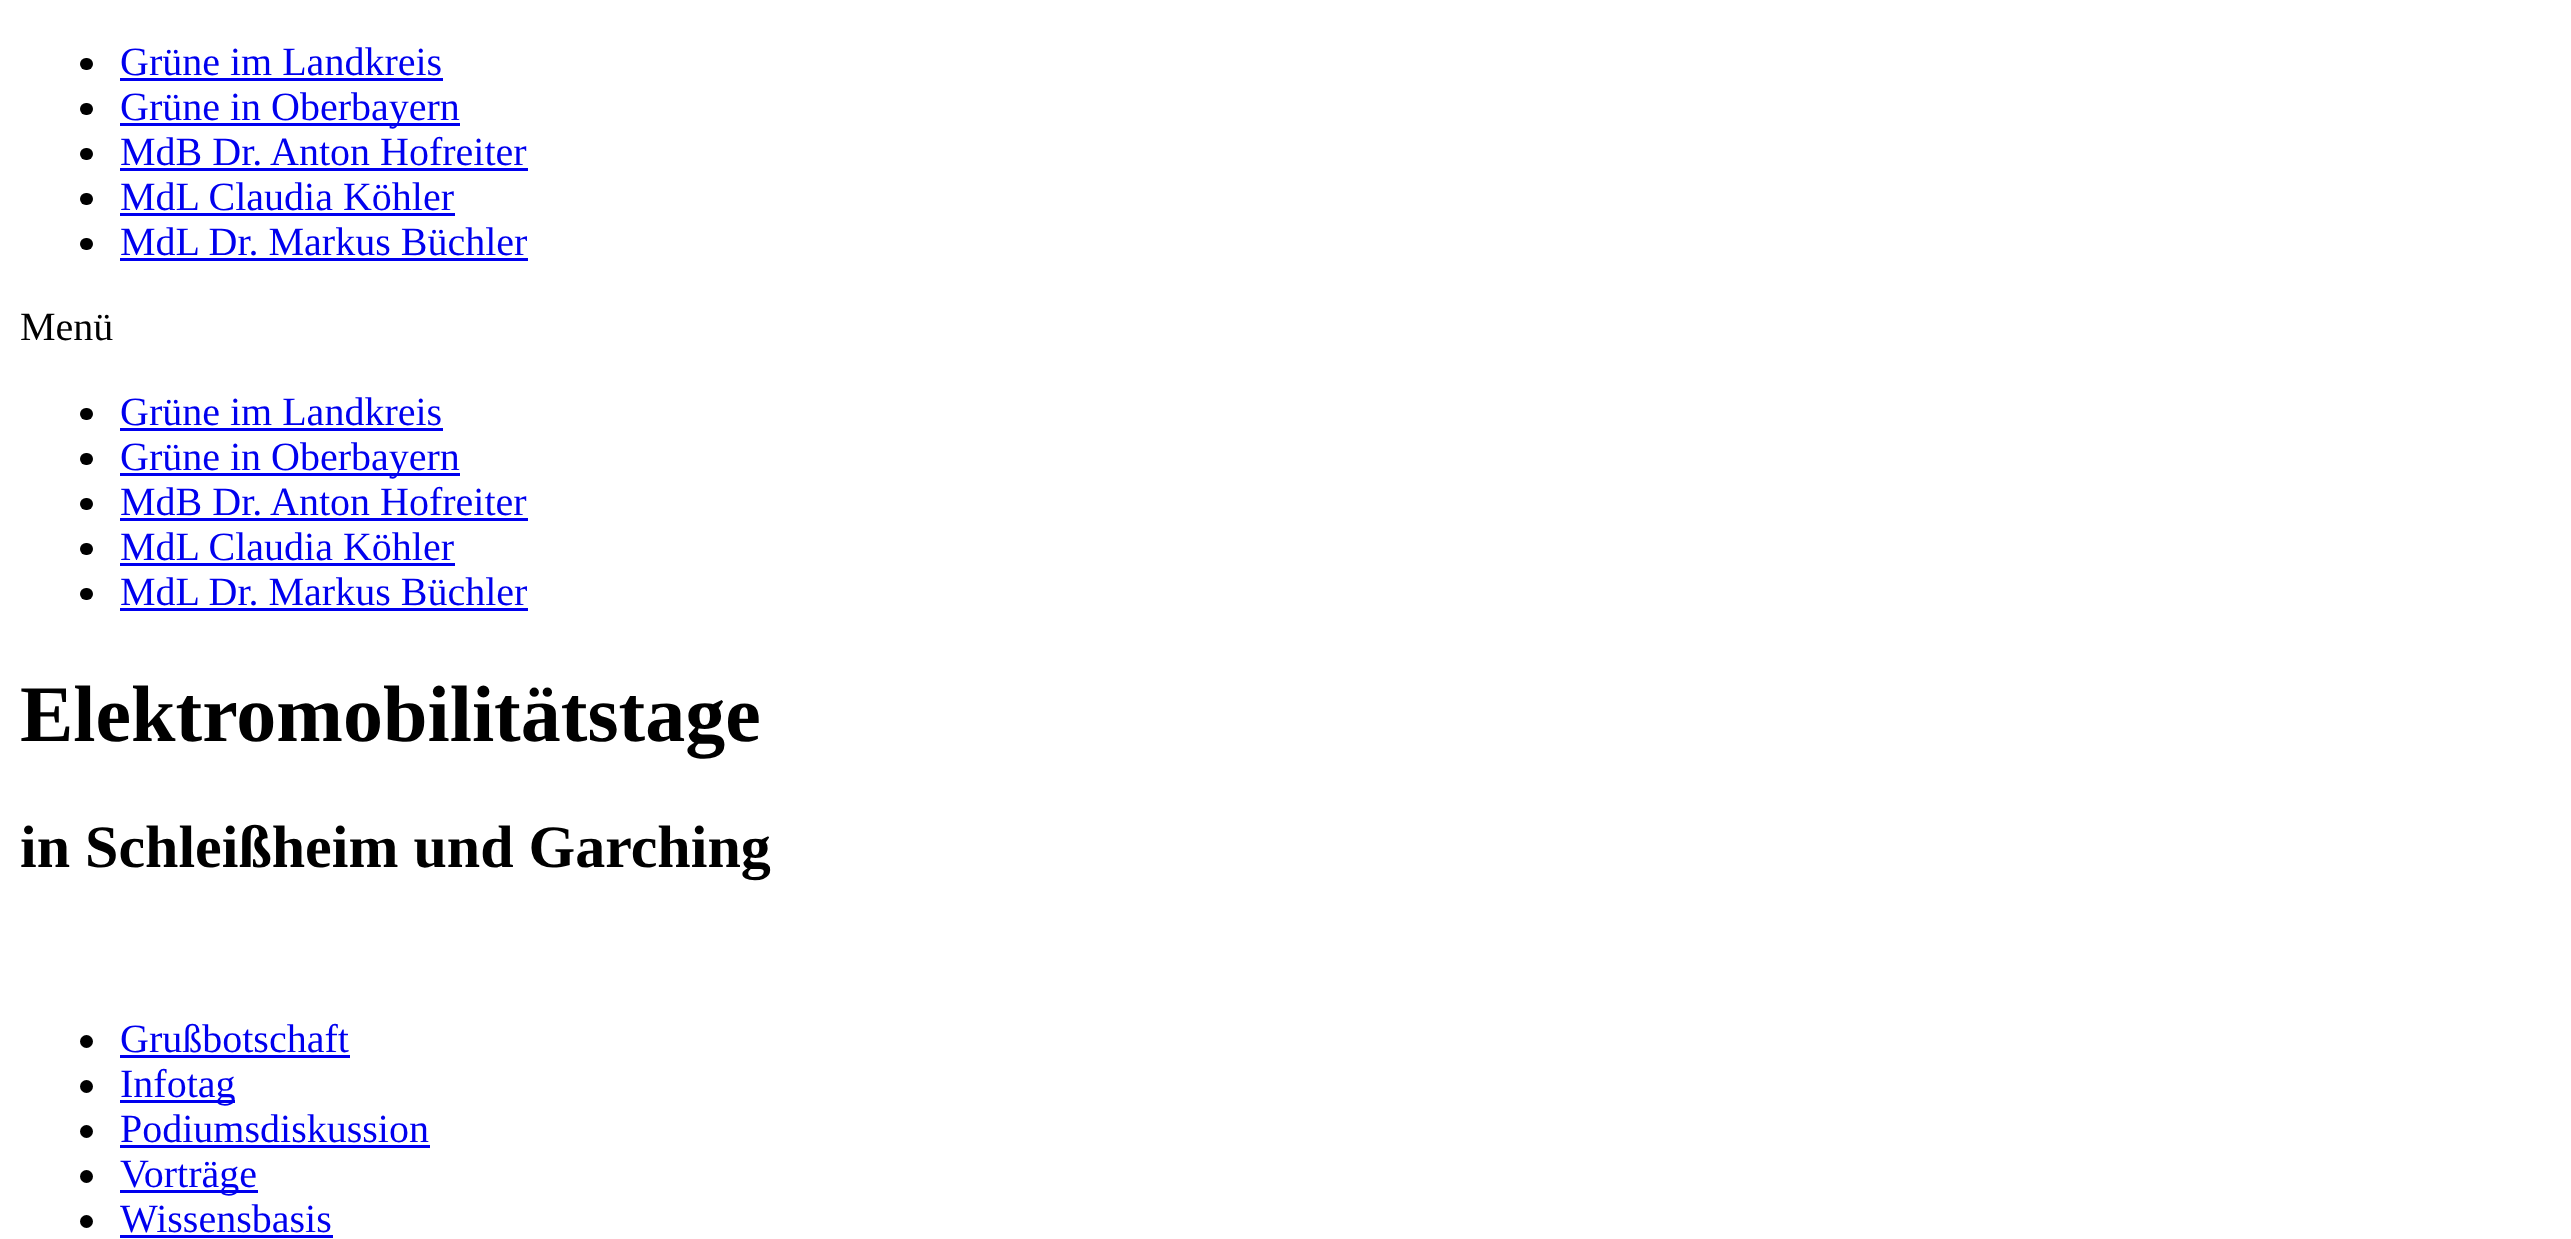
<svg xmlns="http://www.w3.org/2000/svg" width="2571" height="1239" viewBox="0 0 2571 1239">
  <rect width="100%" height="100%" fill="#fff"/>
  <rect x="80" y="58" width="13" height="12" rx="6" fill="#000"/>
  <path d="M120 78h323v3H120z" fill="#00e"/>
  <rect x="80" y="103" width="13" height="12" rx="6" fill="#000"/>
  <path d="M120 123h340v3H120z" fill="#00e"/>
  <rect x="80" y="148" width="13" height="12" rx="6" fill="#000"/>
  <path d="M120 168h408v3H120z" fill="#00e"/>
  <rect x="80" y="193" width="13" height="12" rx="6" fill="#000"/>
  <path d="M120 213h335v3H120z" fill="#00e"/>
  <rect x="80" y="238" width="13" height="12" rx="6" fill="#000"/>
  <path d="M120 258h408v3H120z" fill="#00e"/>
  <rect x="80" y="408" width="13" height="12" rx="6" fill="#000"/>
  <path d="M120 428h323v3H120z" fill="#00e"/>
  <rect x="80" y="453" width="13" height="12" rx="6" fill="#000"/>
  <path d="M120 473h340v3H120z" fill="#00e"/>
  <rect x="80" y="498" width="13" height="12" rx="6" fill="#000"/>
  <path d="M120 518h408v3H120z" fill="#00e"/>
  <rect x="80" y="543" width="13" height="12" rx="6" fill="#000"/>
  <path d="M120 563h335v3H120z" fill="#00e"/>
  <rect x="80" y="588" width="13" height="12" rx="6" fill="#000"/>
  <path d="M120 608h408v3H120z" fill="#00e"/>
  <circle cx="86.5" cy="1041.5" r="6.5" fill="#000"/>
  <path d="M120 1055h230v3H120z" fill="#00e"/>
  <circle cx="86.5" cy="1086.5" r="6.5" fill="#000"/>
  <path d="M120 1100h115v3H120z" fill="#00e"/>
  <circle cx="86.5" cy="1131.5" r="6.5" fill="#000"/>
  <path d="M120 1145h310v3H120z" fill="#00e"/>
  <circle cx="86.5" cy="1176.5" r="6.5" fill="#000"/>
  <path d="M120 1190h138v3H120z" fill="#00e"/>
  <circle cx="86.5" cy="1221.5" r="6.5" fill="#000"/>
  <path d="M120 1235h213v3H120z" fill="#00e"/>
  <g font-family="Liberation Serif" font-size="40" fill="#00e">
    <text x="120" y="75">Grüne im Landkreis</text>
    <text x="120" y="120">Grüne in Oberbayern</text>
    <text x="120" y="165">MdB Dr. Anton Hofreiter</text>
    <text x="120" y="210">MdL Claudia Köhler</text>
    <text x="120" y="255">MdL Dr. Markus Büchler</text>
  </g>
  <text x="20" y="340" font-family="Liberation Serif" font-size="40" fill="#000">Menü</text>
  <g font-family="Liberation Serif" font-size="40" fill="#00e">
    <text x="120" y="425">Grüne im Landkreis</text>
    <text x="120" y="470">Grüne in Oberbayern</text>
    <text x="120" y="515">MdB Dr. Anton Hofreiter</text>
    <text x="120" y="560">MdL Claudia Köhler</text>
    <text x="120" y="605">MdL Dr. Markus Büchler</text>
  </g>
  <text x="20" y="741" font-family="Liberation Serif" font-size="80" font-weight="bold" fill="#000">Elektromobilitätstage</text>
  <text x="20" y="867" font-family="Liberation Serif" font-size="60" font-weight="bold" fill="#000">in Schleißheim und Garching</text>
  <g font-family="Liberation Serif" font-size="40" fill="#00e">
    <text x="120" y="1052">Grußbotschaft</text>
    <text x="120" y="1097">Infotag</text>
    <text x="120" y="1142">Podiumsdiskussion</text>
    <text x="120" y="1187">Vorträge</text>
    <text x="120" y="1232">Wissensbasis</text>
  </g>
</svg>
